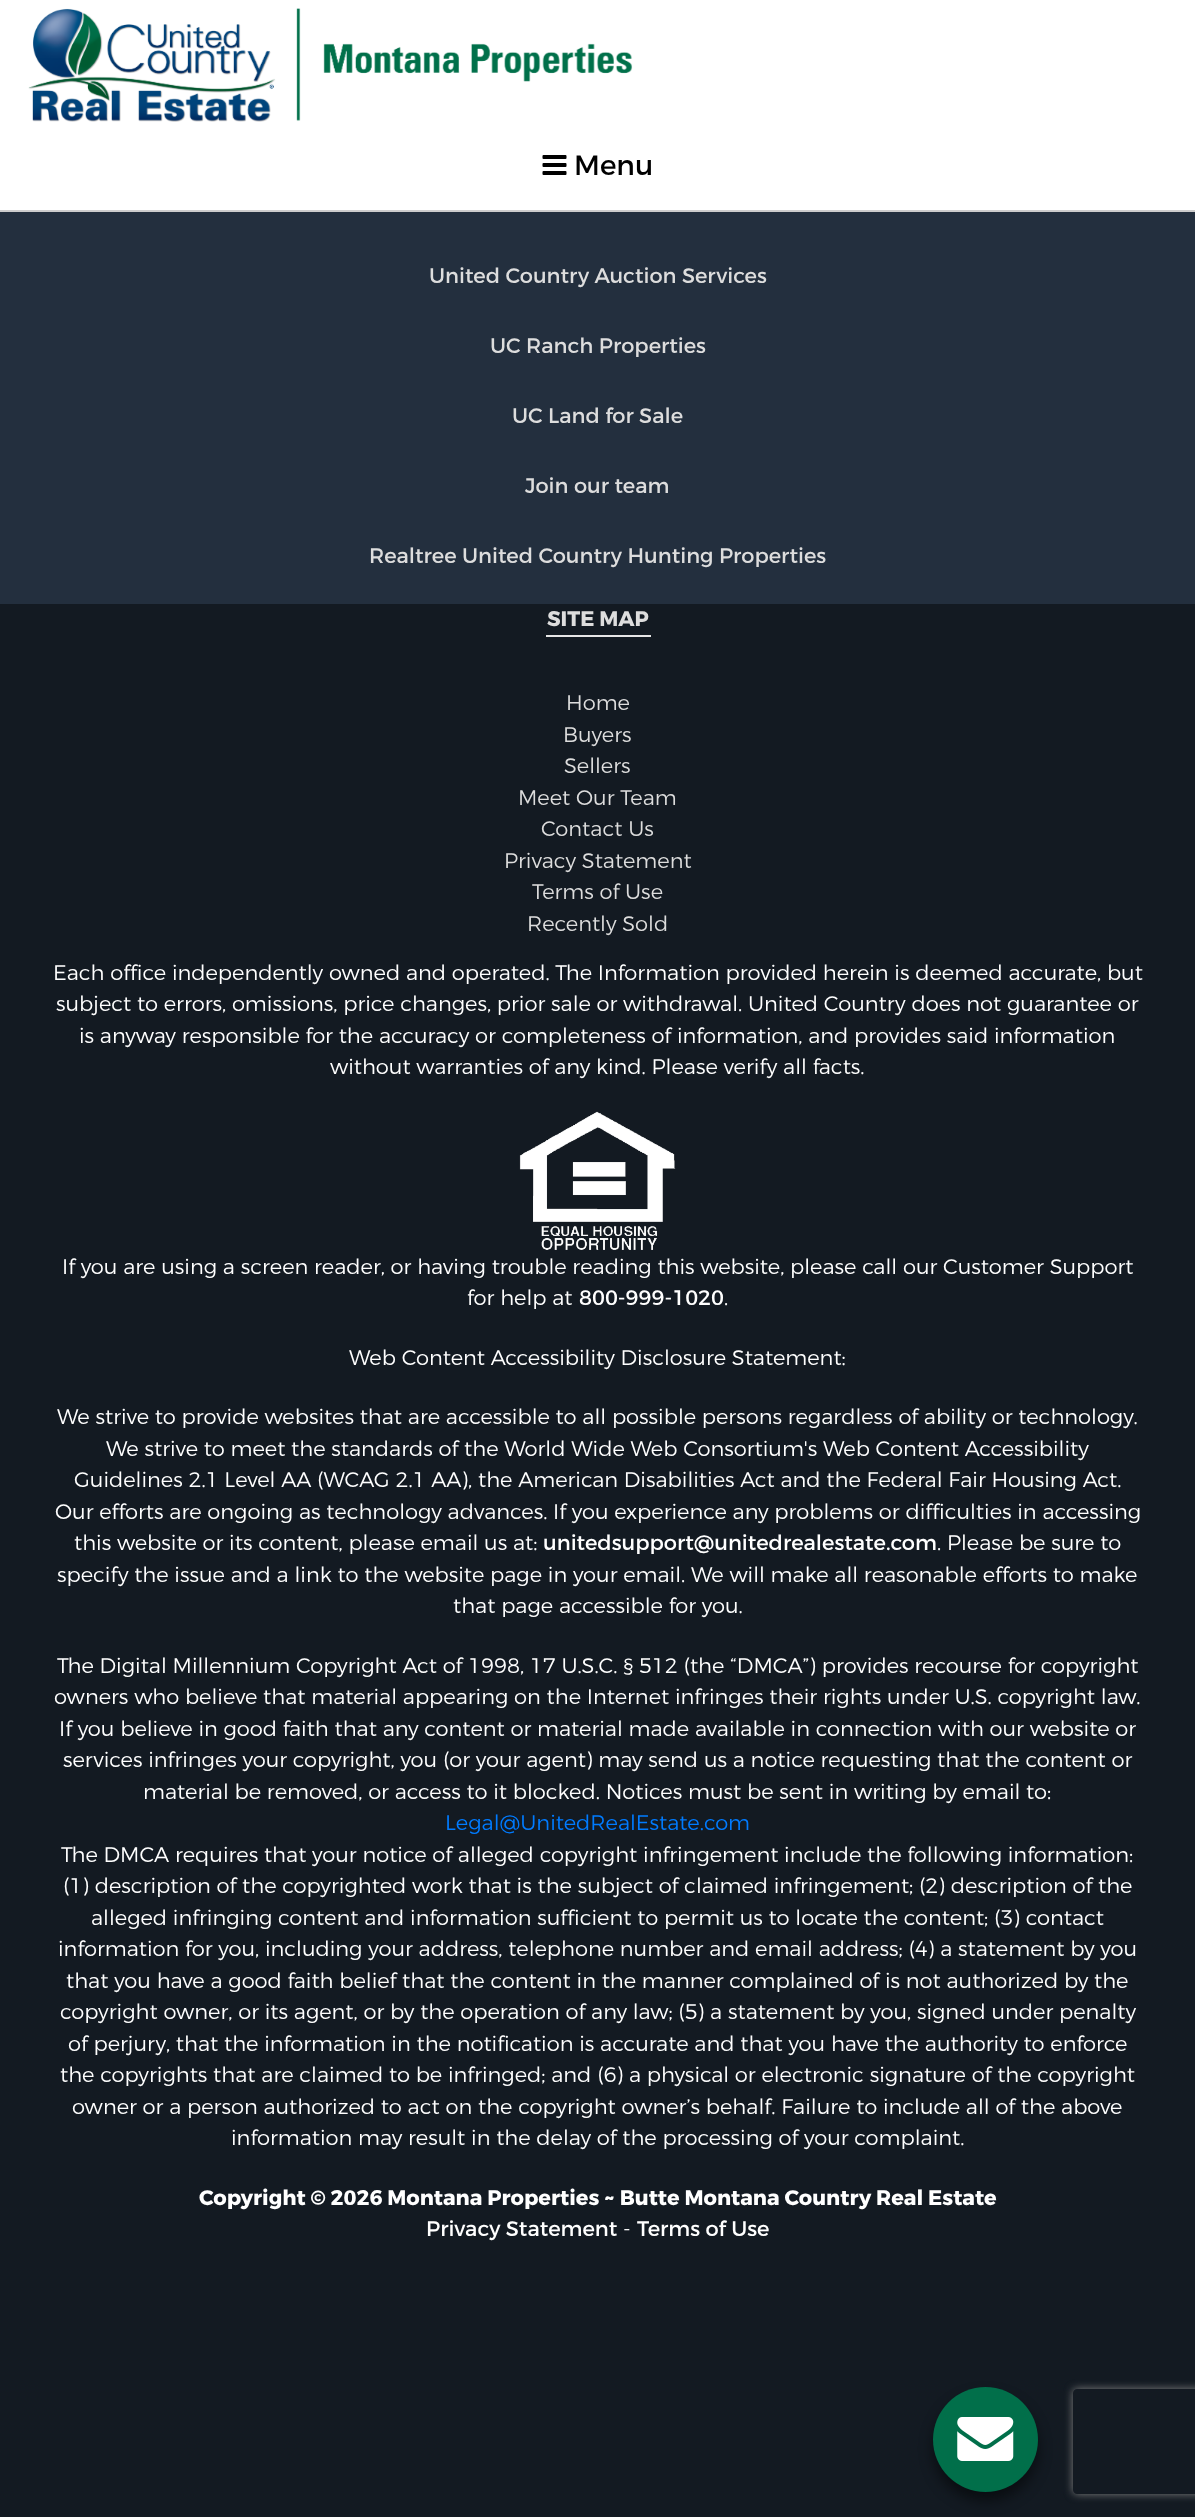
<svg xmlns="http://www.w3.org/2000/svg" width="1195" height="2517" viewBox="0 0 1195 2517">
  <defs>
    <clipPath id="clip1"><path d="M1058 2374H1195V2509H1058ZM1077 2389H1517C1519 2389 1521 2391 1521 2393V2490C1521 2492 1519 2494 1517 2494H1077C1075 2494 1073 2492 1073 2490V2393C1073 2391 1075 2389 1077 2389Z" clip-rule="evenodd"/></clipPath>
  </defs>
  <rect width="100%" height="100%" fill="#232f3e"/>
  <path d="M0 0h1195v210H0z" fill="#fff"/>
  <path d="M0 210h1195v2H0z" fill="#ccc"/>
  <image x="28" y="8" width="605" height="114" href="img/1.png"/>
  <image x="542" y="155" width="25" height="20" href="img/2.png"/>
  <path d="M0 604h1195v1913H0z" fill="#131a22"/>
  <path d="M546 635h105v2H546z" fill="#e6e6e6"/>
  <image x="519" y="1111" width="157" height="139" href="img/3.png"/>
  <rect x="933" y="2396" width="105" height="105" rx="52.5" fill="#00000080" filter="blur(7px)"/>
  <circle cx="985.5" cy="2439.5" r="52.5" fill="#016f4a"/>
  <image x="957" y="2417" width="57" height="44" href="img/4.png"/>
  <g clip-path="url(#clip1)">
    <rect x="1073" y="2389" width="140" height="105" rx="4" fill="#808080" filter="blur(4.5px)"/>
  </g>
  <text x="574" y="175" font-family="Montserrat" font-size="28" fill="#000">Menu</text>
  <g font-family="Montserrat" font-size="21" fill="#ddd">
    <text x="429" y="283">United Country Auction Services</text>
    <text x="490" y="353">UC Ranch Properties</text>
    <text x="512" y="423">UC Land for Sale</text>
    <text x="525" y="493">Join our team</text>
    <text x="369" y="563">Realtree United Country Hunting Properties</text>
  </g>
  <text x="547" y="626" font-family="Montserrat" font-size="21" font-weight="bold" fill="#ddd">SITE MAP</text>
  <g font-family="Montserrat" font-size="21" font-weight="300" fill="#ddd">
    <text x="566" y="710">Home</text>
    <text x="563" y="742">Buyers</text>
    <text x="564" y="773">Sellers</text>
    <text x="518" y="805">Meet Our Team</text>
    <text x="541" y="836">Contact Us</text>
    <text x="504" y="868">Privacy Statement</text>
    <text x="532" y="899">Terms of Use</text>
    <text x="527" y="931">Recently Sold</text>
  </g>
  <g font-family="Montserrat" font-size="21" font-weight="300" fill="#fff">
    <text x="53" y="980">Each office independently owned and operated. The Information provided herein is deemed accurate, but</text>
    <text x="56" y="1011">subject to errors, omissions, price changes, prior sale or withdrawal. United Country does not guarantee or</text>
    <text x="79" y="1043">is anyway responsible for the accuracy or completeness of information, and provides said information</text>
    <text x="330" y="1074">without warranties of any kind. Please verify all facts.</text>
    <text x="62" y="1274">If you are using a screen reader, or having trouble reading this website, please call our Customer Support</text>
    <text x="467" y="1305">for help at</text>
  </g>
  <text x="579" y="1305" font-family="Montserrat" font-size="21" fill="#fff">800-999-1020</text>
  <g font-family="Montserrat" font-size="21" font-weight="300" fill="#fff">
    <text x="724" y="1305">.</text>
    <text x="349" y="1365">Web Content Accessibility Disclosure Statement:</text>
    <text x="57" y="1424">We strive to provide websites that are accessible to all possible persons regardless of ability or technology.</text>
    <text x="106" y="1456">We strive to meet the standards of the World Wide Web Consortium's Web Content Accessibility</text>
    <text x="74" y="1487">Guidelines 2.1 Level AA (WCAG 2.1 AA), the American Disabilities Act and the Federal Fair Housing Act.</text>
    <text x="55" y="1519">Our efforts are ongoing as technology advances. If you experience any problems or difficulties in accessing</text>
    <text x="74" y="1550">this website or its content, please email us at:</text>
  </g>
  <text x="543" y="1550" font-family="Montserrat" font-size="21" fill="#fff">unitedsupport@unitedrealestate.com</text>
  <g font-family="Montserrat" font-size="21" font-weight="300" fill="#fff">
    <text x="937" y="1550">. Please be sure to</text>
    <text x="57" y="1582">specify the issue and a link to the website page in your email. We will make all reasonable efforts to make</text>
    <text x="453" y="1613">that page accessible for you.</text>
    <text x="57" y="1673">The Digital Millennium Copyright Act of 1998, 17 U.S.C. § 512 (the “DMCA”) provides recourse for copyright</text>
    <text x="54" y="1704">owners who believe that material appearing on the Internet infringes their rights under U.S. copyright law.</text>
    <text x="59" y="1736">If you believe in good faith that any content or material made available in connection with our website or</text>
    <text x="63" y="1767">services infringes your copyright, you (or your agent) may send us a notice requesting that the content or</text>
    <text x="143" y="1799">material be removed, or access to it blocked. Notices must be sent in writing by email to:</text>
  </g>
  <text x="445" y="1830" font-family="Montserrat" font-size="21" font-weight="300" fill="#007bff">Legal@UnitedRealEstate.com</text>
  <g font-family="Montserrat" font-size="21" font-weight="300" fill="#fff">
    <text x="61" y="1862">The DMCA requires that your notice of alleged copyright infringement include the following information:</text>
    <text x="63" y="1893">(1) description of the copyrighted work that is the subject of claimed infringement; (2) description of the</text>
    <text x="91" y="1925">alleged infringing content and information sufficient to permit us to locate the content; (3) contact</text>
    <text x="58" y="1956">information for you, including your address, telephone number and email address; (4) a statement by you</text>
    <text x="66" y="1988">that you have a good faith belief that the content in the manner complained of is not authorized by the</text>
    <text x="60" y="2019">copyright owner, or its agent, or by the operation of any law; (5) a statement by you, signed under penalty</text>
    <text x="68" y="2051">of perjury, that the information in the notification is accurate and that you have the authority to enforce</text>
    <text x="60" y="2082">the copyrights that are claimed to be infringed; and (6) a physical or electronic signature of the copyright</text>
    <text x="72" y="2114">owner or a person authorized to act on the copyright owner’s behalf. Failure to include all of the above</text>
    <text x="231" y="2145">information may result in the delay of the processing of your complaint.</text>
  </g>
  <text x="199" y="2205" font-family="Montserrat" font-size="21" font-weight="bold" fill="#fff">Copyright © 2026 Montana Properties ~ Butte Montana Country Real Estate</text>
  <text x="426" y="2236" font-family="Montserrat" font-size="21" fill="#fff">Privacy Statement</text>
  <text x="623" y="2236" font-family="Montserrat" font-size="21" font-weight="300" fill="#fff">-</text>
  <text x="637" y="2236" font-family="Montserrat" font-size="21" fill="#fff">Terms of Use</text>
</svg>
